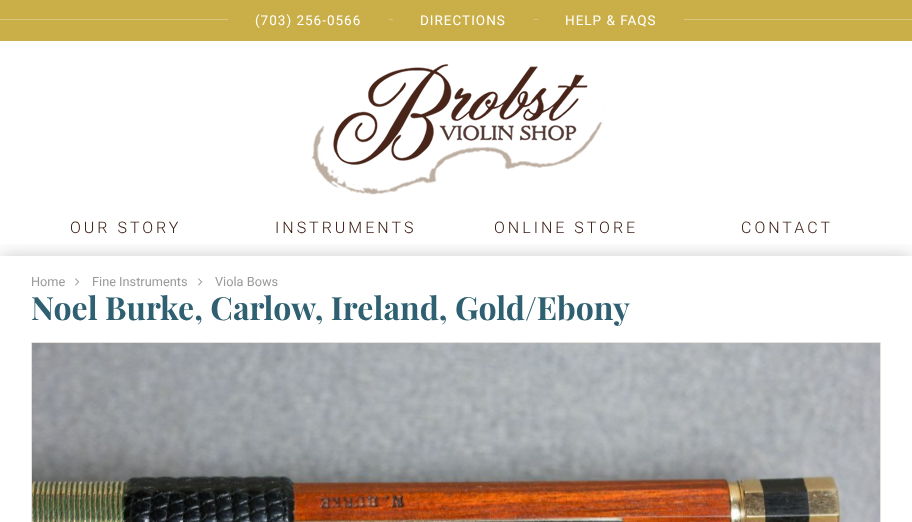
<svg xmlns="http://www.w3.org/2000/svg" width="912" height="522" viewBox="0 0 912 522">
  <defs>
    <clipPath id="clip1"><path d="M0 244h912v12H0z"/></clipPath>
  </defs>
  <rect width="100%" height="100%" fill="#fff"/>
  <path d="M0 0h912v41H0z" fill="#caaf48"/>
  <path d="M0 19h912v1H0z" fill="#dac77f"/>
  <path d="M228 19h161v1H228z" fill="#caaf48"/>
  <path d="M393 19h141v1H393z" fill="#caaf48"/>
  <path d="M538 19h146v1H538z" fill="#caaf48"/>
  <image x="311" y="64" width="294" height="131" href="img/1.png"/>
  <g clip-path="url(#clip1)">
    <path d="M0 258h912v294H0z" fill="#00000040" filter="blur(10px)"/>
  </g>
  <image x="75" y="278" width="5" height="8" href="img/2.png"/>
  <image x="198" y="278" width="5" height="8" href="img/2.png"/>
  <path d="M31.5 342.5h849v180H31.5z" fill="none" stroke="#e9e2db"/>
  <image x="32" y="343" width="848" height="179" href="img/3.png"/>
  <g font-family="Roboto" font-size="13.5" letter-spacing="1" fill="#fff">
    <text x="255" y="25">(703) 256-0566</text>
    <text x="420" y="25">DIRECTIONS</text>
    <text x="565" y="25">HELP &amp; FAQS</text>
  </g>
  <g font-family="Roboto" font-size="16" font-weight="300" letter-spacing="3" fill="#36160b">
    <text x="70" y="233">OUR STORY</text>
    <text x="275" y="233">INSTRUMENTS</text>
    <text x="494" y="233">ONLINE STORE</text>
    <text x="741" y="233">CONTACT</text>
  </g>
  <g font-family="Roboto" font-size="12.75" fill="#999">
    <text x="31" y="286">Home</text>
    <text x="92" y="286">Fine Instruments</text>
    <text x="215" y="286">Viola Bows</text>
  </g>
  <text x="31" y="320" font-family="Playfair Display" font-size="32" font-weight="bold" fill="#2f6071">Noel Burke, Carlow, Ireland, Gold/Ebony</text>
</svg>
